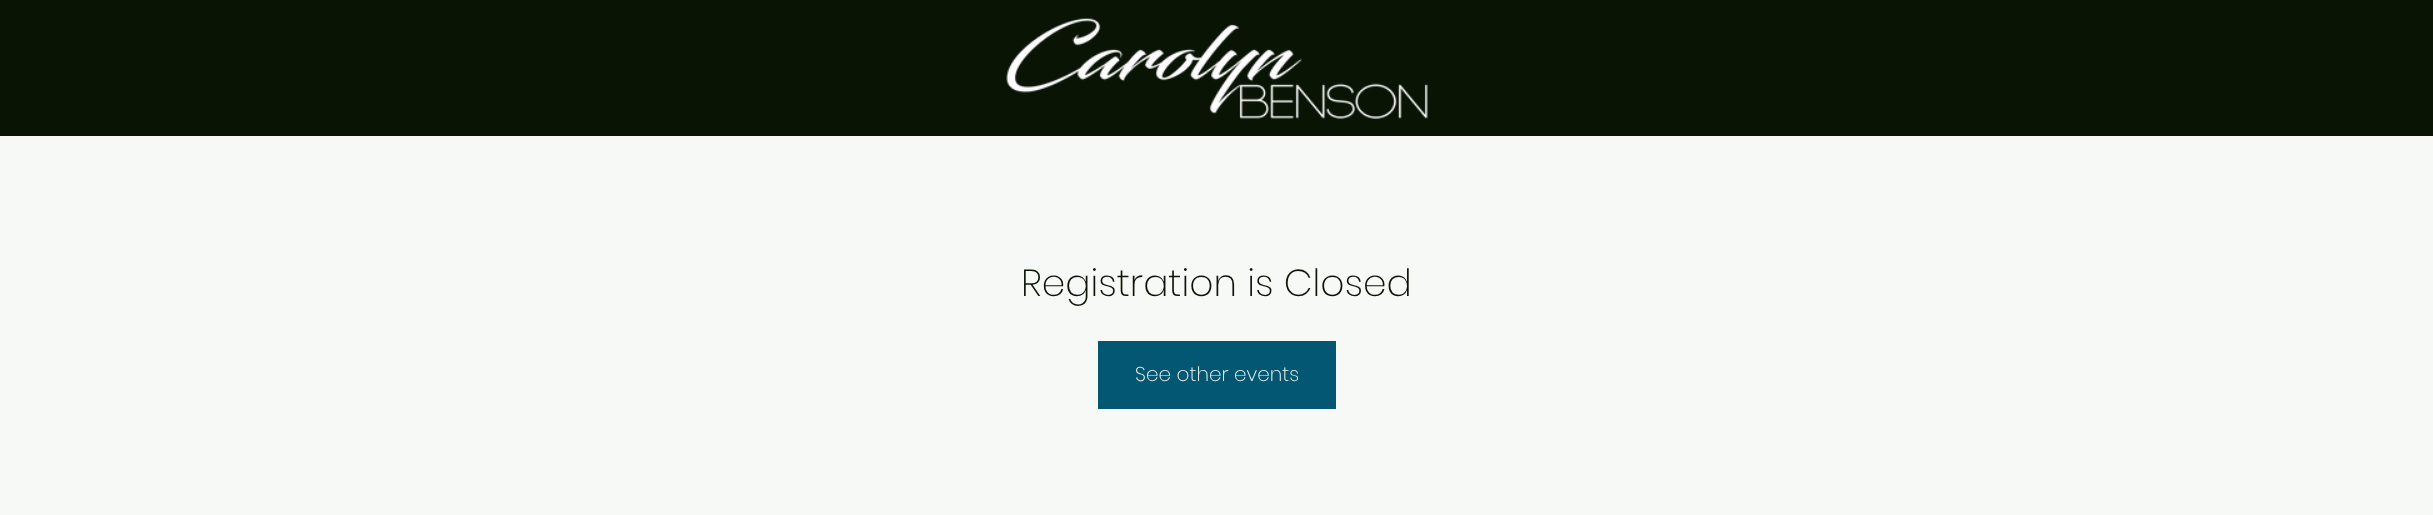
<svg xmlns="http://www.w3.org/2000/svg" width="2433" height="515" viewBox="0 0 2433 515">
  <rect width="100%" height="100%" fill="#f6f9f5"/>
  <path d="M0 0h2433v136H0z" fill="#091405"/>
  <image x="1006" y="17" width="422" height="102" href="img/1.png"/>
  <path d="M1098 341h238v68H1098z" fill="#035772"/>
  <text x="1021" y="296" font-family="Poppins" font-size="37.5" font-weight="200" fill="#091405">Registration is Closed</text>
  <text x="1135" y="381" font-family="Poppins" font-size="20" font-weight="200" fill="#f6f9f5">See other events</text>
</svg>
